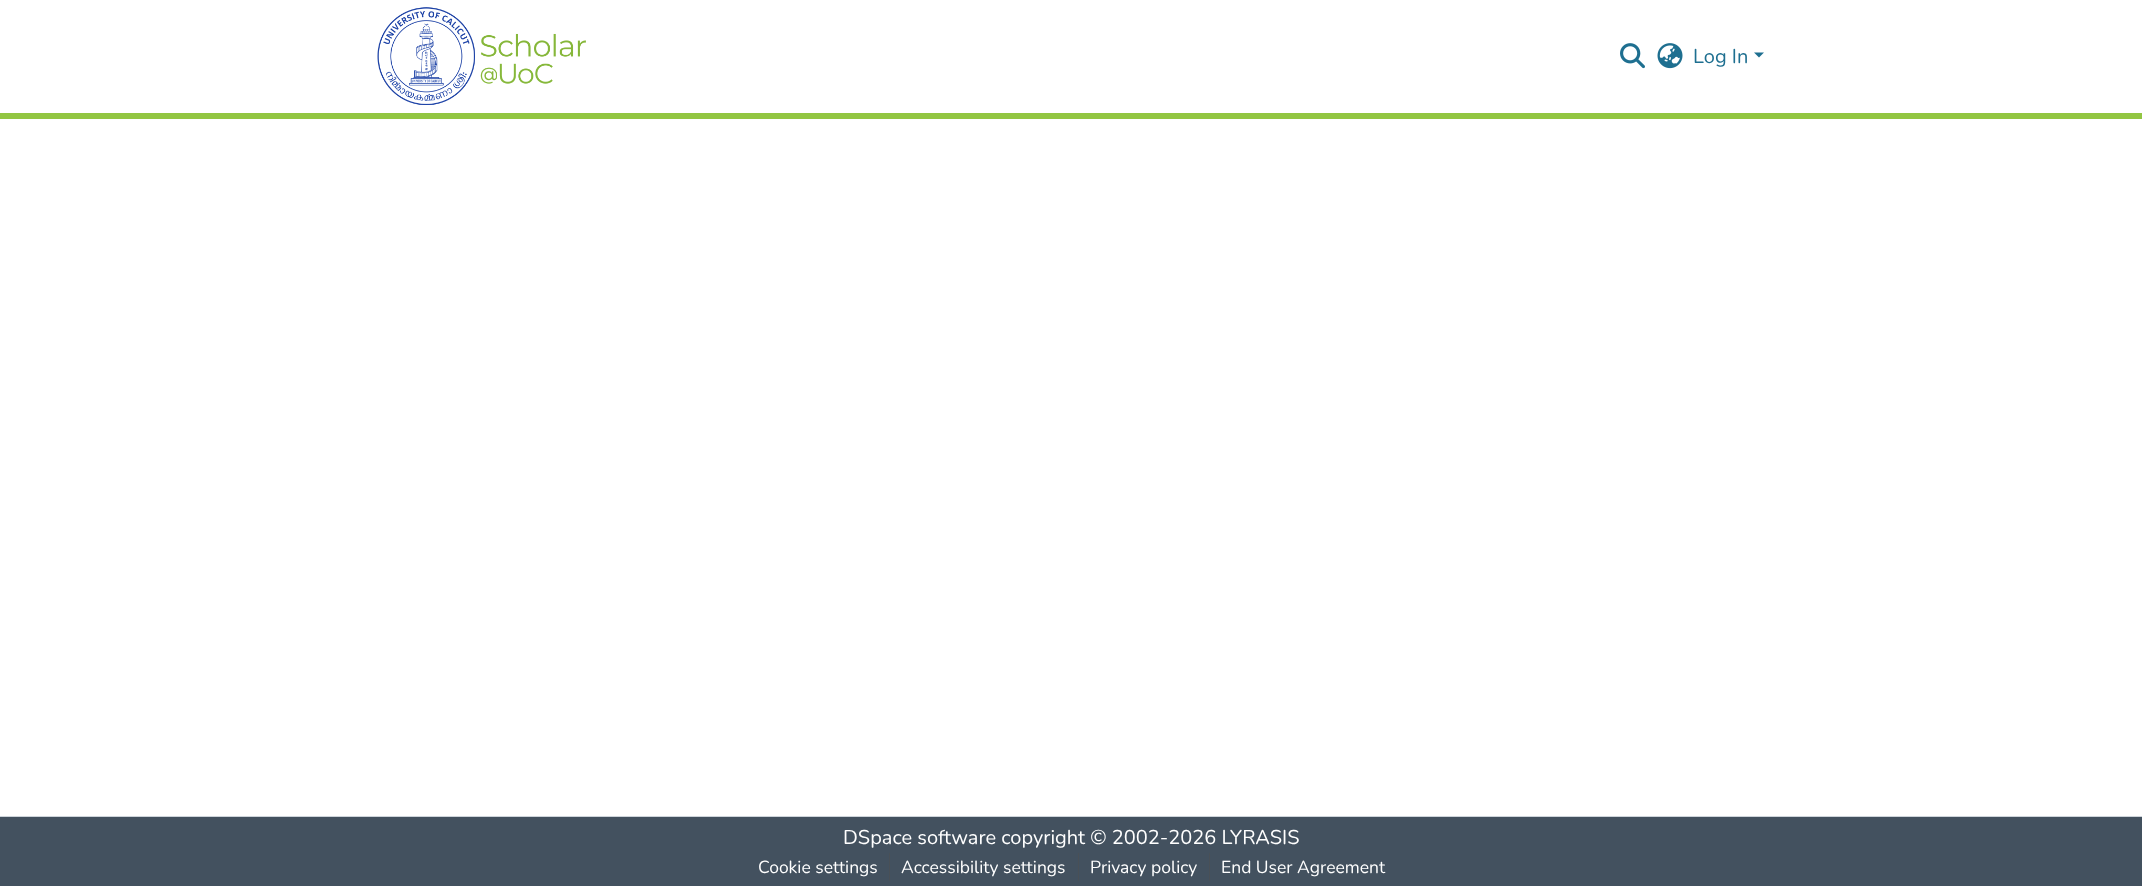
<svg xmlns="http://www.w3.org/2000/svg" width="2142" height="886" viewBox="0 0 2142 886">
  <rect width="100%" height="100%" fill="#fff"/>
  <path d="M0 113h2142v6H0z" fill="#92c642"/>
  <image x="377" y="7" width="209" height="98" href="img/1.png"/>
  <image x="1620" y="43" width="25" height="26" href="img/2.png"/>
  <image x="1657" y="43" width="26" height="26" href="img/3.png"/>
  <path d="M1754 52.5H1764L1759 57.5Z" fill="#1e6f90"/>
  <path d="M0 817h2142v69H0z" fill="#43515f"/>
  <path d="M0 816h2142v1H0z" fill="#ced4da"/>
  <path d="M889 853h1v28H889z" fill="#495057"/>
  <path d="M1078 853h1v28H1078z" fill="#495057"/>
  <path d="M1209 853h1v28H1209z" fill="#495057"/>
  <text x="1693" y="63" font-family="Nunito" font-size="20" fill="#1e6f90">Log In</text>
  <text x="843" y="844" font-family="Nunito" font-size="20" fill="#fff">DSpace software copyright © 2002-2026 LYRASIS</text>
  <g font-family="Nunito" font-size="17.5" fill="#fff">
    <text x="758" y="873">Cookie settings</text>
    <text x="901" y="873">Accessibility settings</text>
    <text x="1090" y="873">Privacy policy</text>
    <text x="1221" y="873">End User Agreement</text>
  </g>
</svg>
